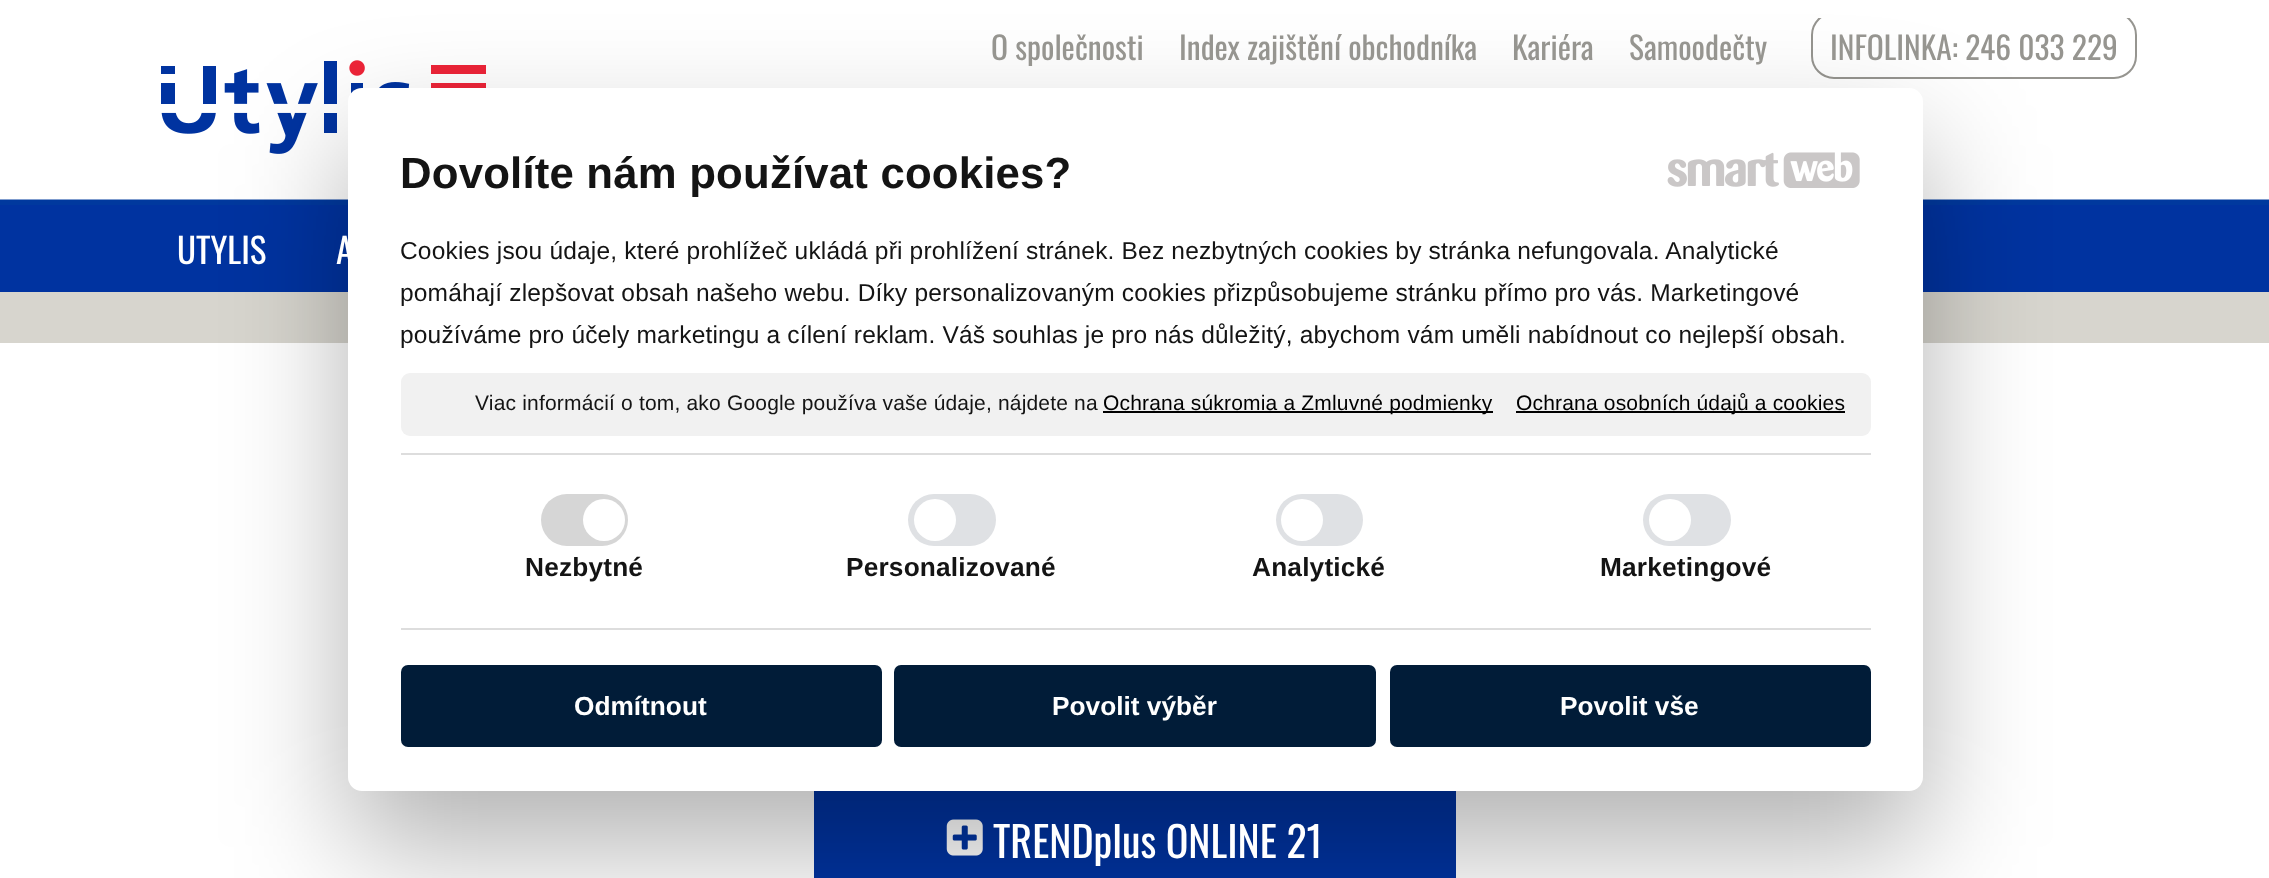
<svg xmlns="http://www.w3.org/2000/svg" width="2269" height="878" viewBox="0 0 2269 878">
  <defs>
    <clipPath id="clip1"><path d="M1785 18h369v64H1785z"/></clipPath>
  </defs>
  <rect width="100%" height="100%" fill="#fff"/>
  <image x="0" y="199" width="2269" height="144" href="img/1.png"/>
  <g clip-path="url(#clip1)">
    <rect x="1812" y="13" width="324" height="65" rx="22" fill="none" stroke="#969590" stroke-width="2"/>
  </g>
  <image x="161" y="60" width="325" height="94" href="img/2.png"/>
  <path d="M0 205h2269v87H0z" fill="#0033a0"/>
  <path d="M814 791h642v87H814z" fill="#0033a0"/>
  <image x="946" y="819" width="37" height="37" href="img/5.png"/>
  <rect x="348" y="144" width="1575" height="703" rx="14" fill="#0000004d" filter="blur(59.5px)"/>
  <rect x="348" y="88" width="1575" height="703" rx="14" fill="#fff"/>
  <image x="1667" y="152" width="112" height="35" href="img/3.png"/>
  <image x="1783" y="152" width="77" height="36" href="img/4.png"/>
  <rect x="401" y="373" width="1470" height="63" rx="9" fill="#f1f1f1"/>
  <path d="M1103 411h390v2H1103z" fill="#000"/>
  <path d="M1516 411h329v2H1516z" fill="#000"/>
  <path d="M401 453h1470v2H401z" fill="#ddd"/>
  <path d="M401 628h1470v2H401z" fill="#ddd"/>
  <rect x="541" y="494" width="87" height="52" rx="26" fill="#d6d6d6"/>
  <circle cx="604" cy="520" r="21" fill="#fff"/>
  <rect x="908" y="494" width="88" height="52" rx="26" fill="#dfe1e4"/>
  <circle cx="935" cy="520" r="21" fill="#fff"/>
  <rect x="1276" y="494" width="87" height="52" rx="26" fill="#dfe1e4"/>
  <circle cx="1302" cy="520" r="21" fill="#fff"/>
  <rect x="1643" y="494" width="88" height="52" rx="26" fill="#dfe1e4"/>
  <circle cx="1670" cy="520" r="21" fill="#fff"/>
  <rect x="401" y="665" width="481" height="82" rx="7" fill="#011c38"/>
  <rect x="894" y="665" width="482" height="82" rx="7" fill="#011c38"/>
  <rect x="1390" y="665" width="481" height="82" rx="7" fill="#011c38"/>
  <g font-family="Oswald" font-size="31.5" fill="#969590">
    <text x="991" y="60">O společnosti</text>
    <text x="1179" y="60">Index zajištění obchodníka</text>
    <text x="1512" y="60">Kariéra</text>
    <text x="1629" y="60">Samoodečty</text>
    <text x="1830" y="60">INFOLINKA: 246 033 229</text>
  </g>
  <g font-family="Oswald" font-size="35" fill="#fff">
    <text x="177" y="264">UTYLIS</text>
    <text x="336" y="264">A</text>
  </g>
  <text x="400" y="188" font-family="Liberation Sans" font-size="43.75" font-weight="bold" letter-spacing="0.18" fill="#141414">Dovolíte nám používat cookies?</text>
  <g font-family="Liberation Sans" font-size="24.5" letter-spacing="0.18" fill="#141414">
    <text x="400" y="259">Cookies jsou údaje, které prohlížeč ukládá při prohlížení stránek. Bez nezbytných cookies by stránka nefungovala. Analytické</text>
    <text x="400" y="301">pomáhají zlepšovat obsah našeho webu. Díky personalizovaným cookies přizpůsobujeme stránku přímo pro vás. Marketingové</text>
    <text x="400" y="343">používáme pro účely marketingu a cílení reklam. Váš souhlas je pro nás důležitý, abychom vám uměli nabídnout co nejlepší obsah.</text>
  </g>
  <text x="475" y="410" font-family="Liberation Sans" font-size="21" letter-spacing="0.18" fill="#141414">Viac informácií o tom, ako Google používa vaše údaje, nájdete na</text>
  <g font-family="Liberation Sans" font-size="21" letter-spacing="0.18" fill="#000">
    <text x="1103" y="410">Ochrana súkromia a Zmluvné podmienky</text>
    <text x="1516" y="410">Ochrana osobních údajů a cookies</text>
  </g>
  <g font-family="Liberation Sans" font-size="26.25" font-weight="bold" letter-spacing="0.18" fill="#141414">
    <text x="525" y="576">Nezbytné</text>
    <text x="846" y="576">Personalizované</text>
    <text x="1252" y="576">Analytické</text>
    <text x="1600" y="576">Marketingové</text>
  </g>
  <g font-family="Liberation Sans" font-size="26.25" font-weight="bold" fill="#fff">
    <text x="574" y="715">Odmítnout</text>
    <text x="1052" y="715">Povolit výběr</text>
    <text x="1560" y="715">Povolit vše</text>
  </g>
  <text x="993" y="858" font-family="Oswald" font-size="42" fill="#fff">TRENDplus ONLINE 21</text>
</svg>
